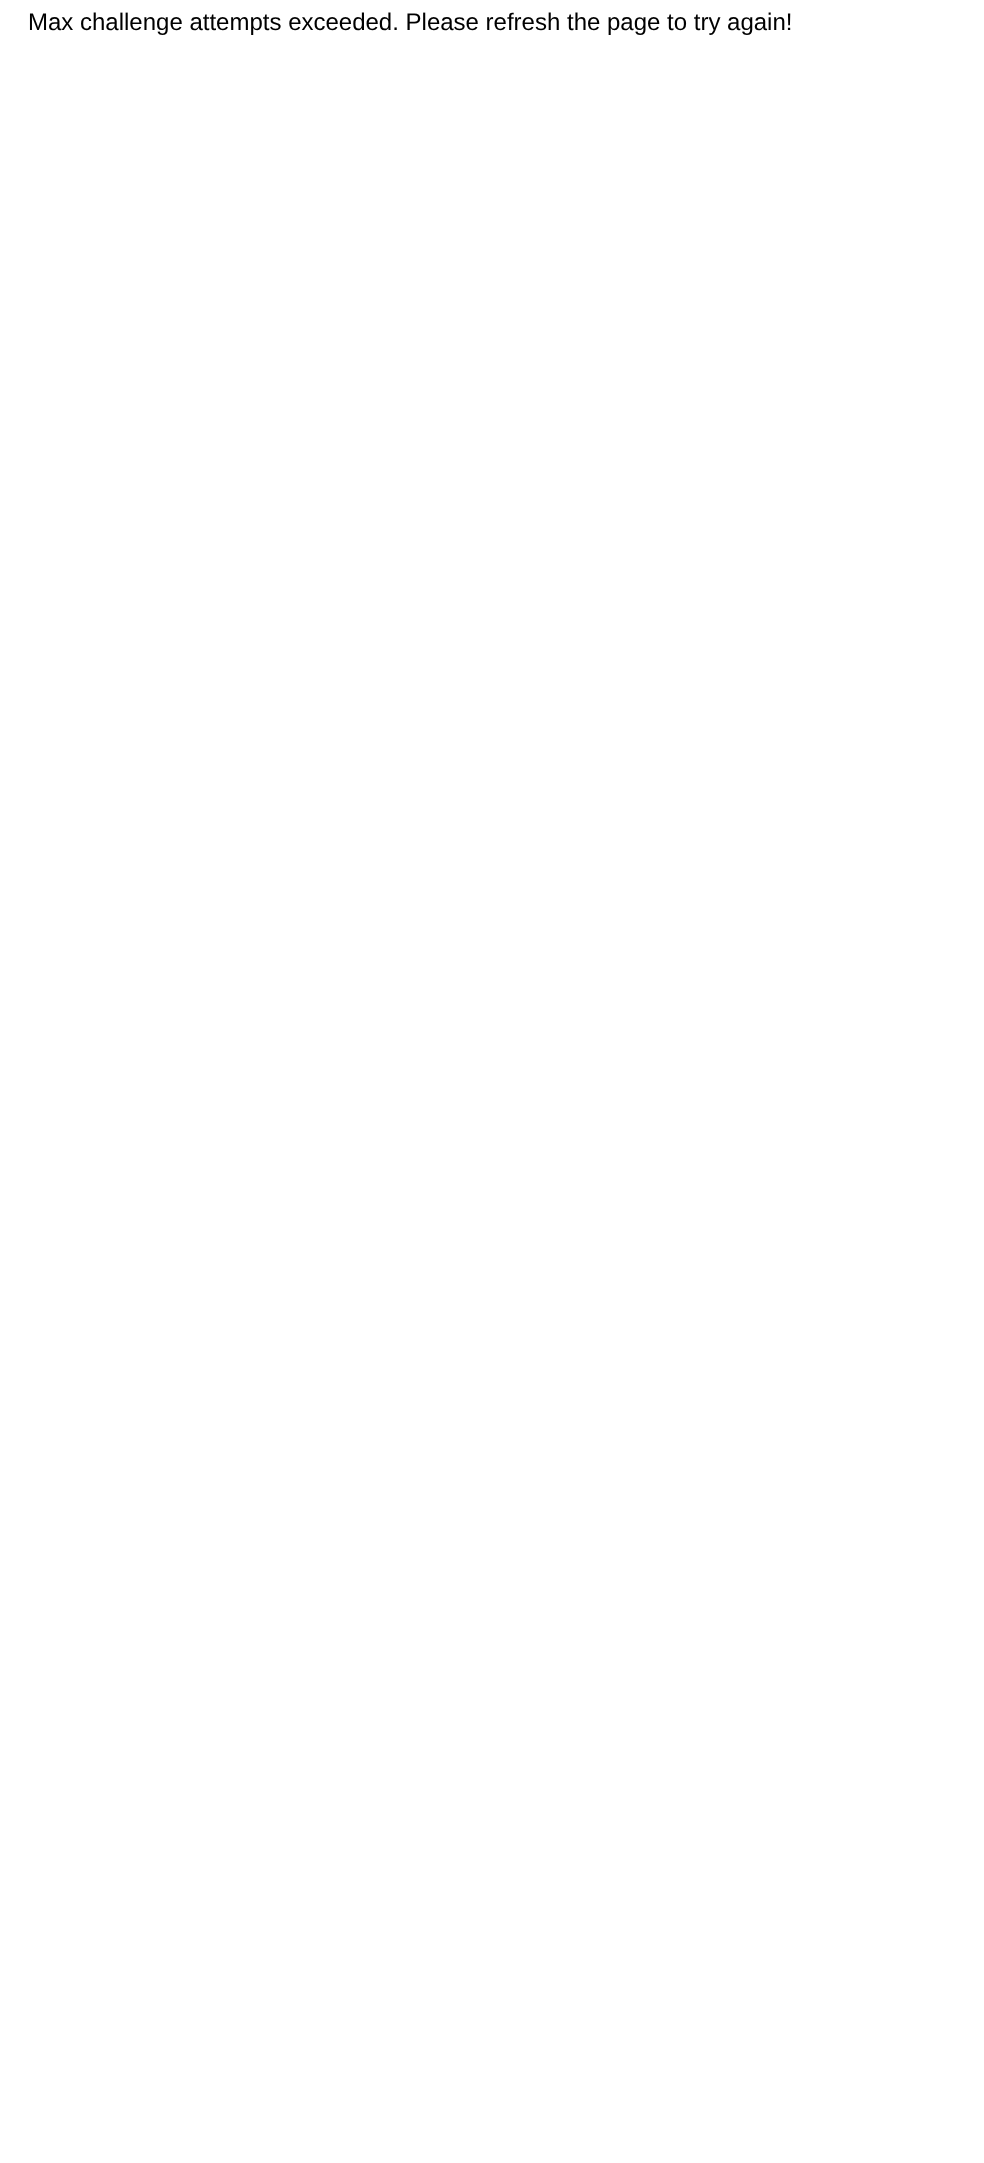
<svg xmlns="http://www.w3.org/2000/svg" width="984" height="2163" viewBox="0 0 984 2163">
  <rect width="100%" height="100%" fill="#fff"/>
  <text x="28" y="30" font-family="Liberation Sans" font-size="24" fill="#000">Max challenge attempts exceeded. Please refresh the page to try again!</text>
</svg>
